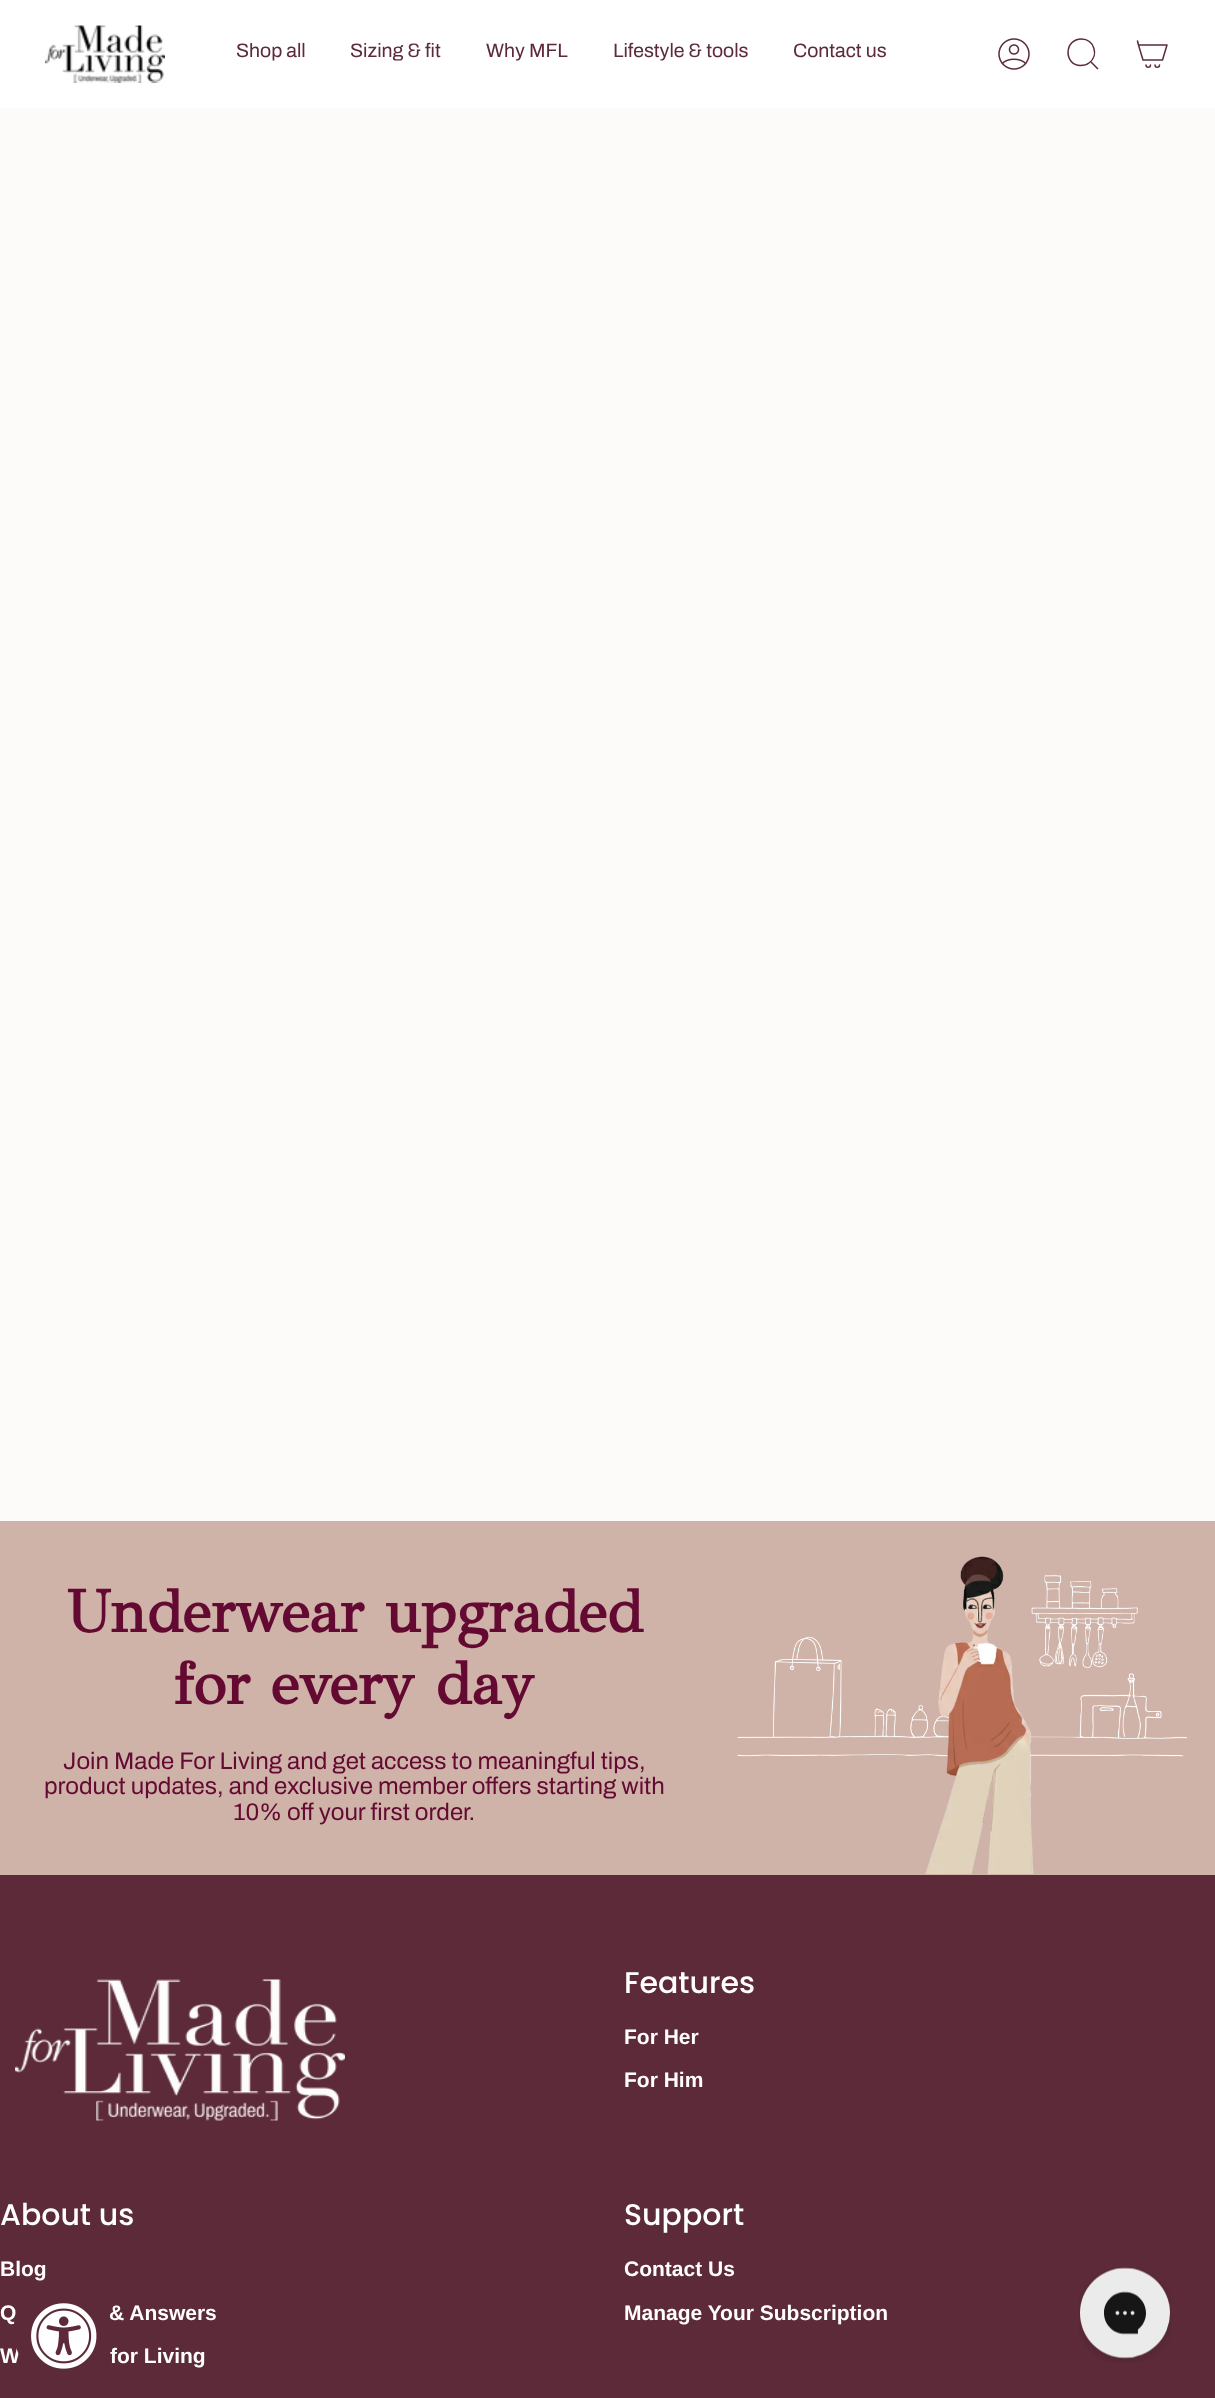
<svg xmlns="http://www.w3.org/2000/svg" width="1215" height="2398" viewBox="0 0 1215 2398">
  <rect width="100%" height="100%" fill="#fcfbf9"/>
  <path d="M0 0h1215v108H0z" fill="#fff"/>
  <image x="45" y="25" width="120" height="58" href="img/1.png"/>
  <image x="998" y="38" width="32" height="32" href="img/2.png"/>
  <path d="M1081.5 39C1094 39 1099.5 55.5 1089 63C1086.5 65 1083.5 65.5 1080.5 65.5C1063.5 65 1064 39 1081.5 39ZM1090.5 61.5L1098 69" fill="none" stroke="#5c2a38" stroke-width="1.5"/>
  <path d="M1138.5 45H1167L1162.5 60H1143ZM1138.5 45L1137.5 41M1150.5 65C1150.5 68 1146 68 1146 65M1159.5 65C1159.5 68 1155 68 1155 65" fill="none" stroke="#5c2a38" stroke-width="1.5" stroke-linecap="round" stroke-linejoin="round"/>
  <path d="M0 1521h1215v354H0z" fill="#cfb3a9"/>
  <image x="737" y="1556" width="450" height="319" href="img/3.png"/>
  <path d="M0 1875h1215v523H0z" fill="#5c2a38"/>
  <image x="15" y="1979" width="330" height="142" href="img/4.png"/>
  <image x="1079" y="2267" width="92" height="96" href="img/5.png"/>
  <g font-family="Archivo" font-size="19.5" fill="#5c2a38">
    <text x="236" y="57">Shop all</text>
    <text x="350" y="57">Sizing &amp; fit</text>
    <text x="486" y="57">Why MFL</text>
    <text x="613" y="57">Lifestyle &amp; tools</text>
    <text x="793" y="57">Contact us</text>
  </g>
  <g font-family="GFS Didot" font-size="60" font-weight="bold" fill="#630932">
    <text x="66" y="1632">Underwear upgraded</text>
    <text x="174" y="1704">for every day</text>
  </g>
  <g font-family="Archivo" font-size="24" fill="#630932">
    <text x="63" y="1769">Join Made For Living and get access to meaningful tips,</text>
    <text x="44" y="1794">product updates, and exclusive member offers starting with</text>
    <text x="233" y="1820">10% off your first order.</text>
  </g>
  <text x="624" y="1993" font-family="Poppins" font-size="30" font-weight="500" fill="#fff">Features</text>
  <g font-family="Liberation Sans" font-size="21" font-weight="bold" fill="#fff">
    <text x="624" y="2044">For Her</text>
    <text x="624" y="2087">For Him</text>
  </g>
  <text x="0" y="2225" font-family="Poppins" font-size="30" font-weight="500" fill="#fff">About us</text>
  <g font-family="Liberation Sans" font-size="21" font-weight="bold" fill="#fff">
    <text x="0" y="2276">Blog</text>
    <text x="0" y="2320">Q</text>
    <text x="109" y="2320">&amp; Answers</text>
    <text x="0" y="2363">W</text>
    <text x="110" y="2363">for Living</text>
  </g>
  <text x="624" y="2225" font-family="Poppins" font-size="30" font-weight="500" fill="#fff">Support</text>
  <g font-family="Liberation Sans" font-size="21" font-weight="bold" fill="#fff">
    <text x="624" y="2276">Contact Us</text>
    <text x="624" y="2320">Manage Your Subscription</text>
  </g>
  <circle cx="63" cy="2336" r="48" fill="#5c2a38"/>
  <image x="31" y="2303" width="66" height="66" href="img/6.png"/>
</svg>
